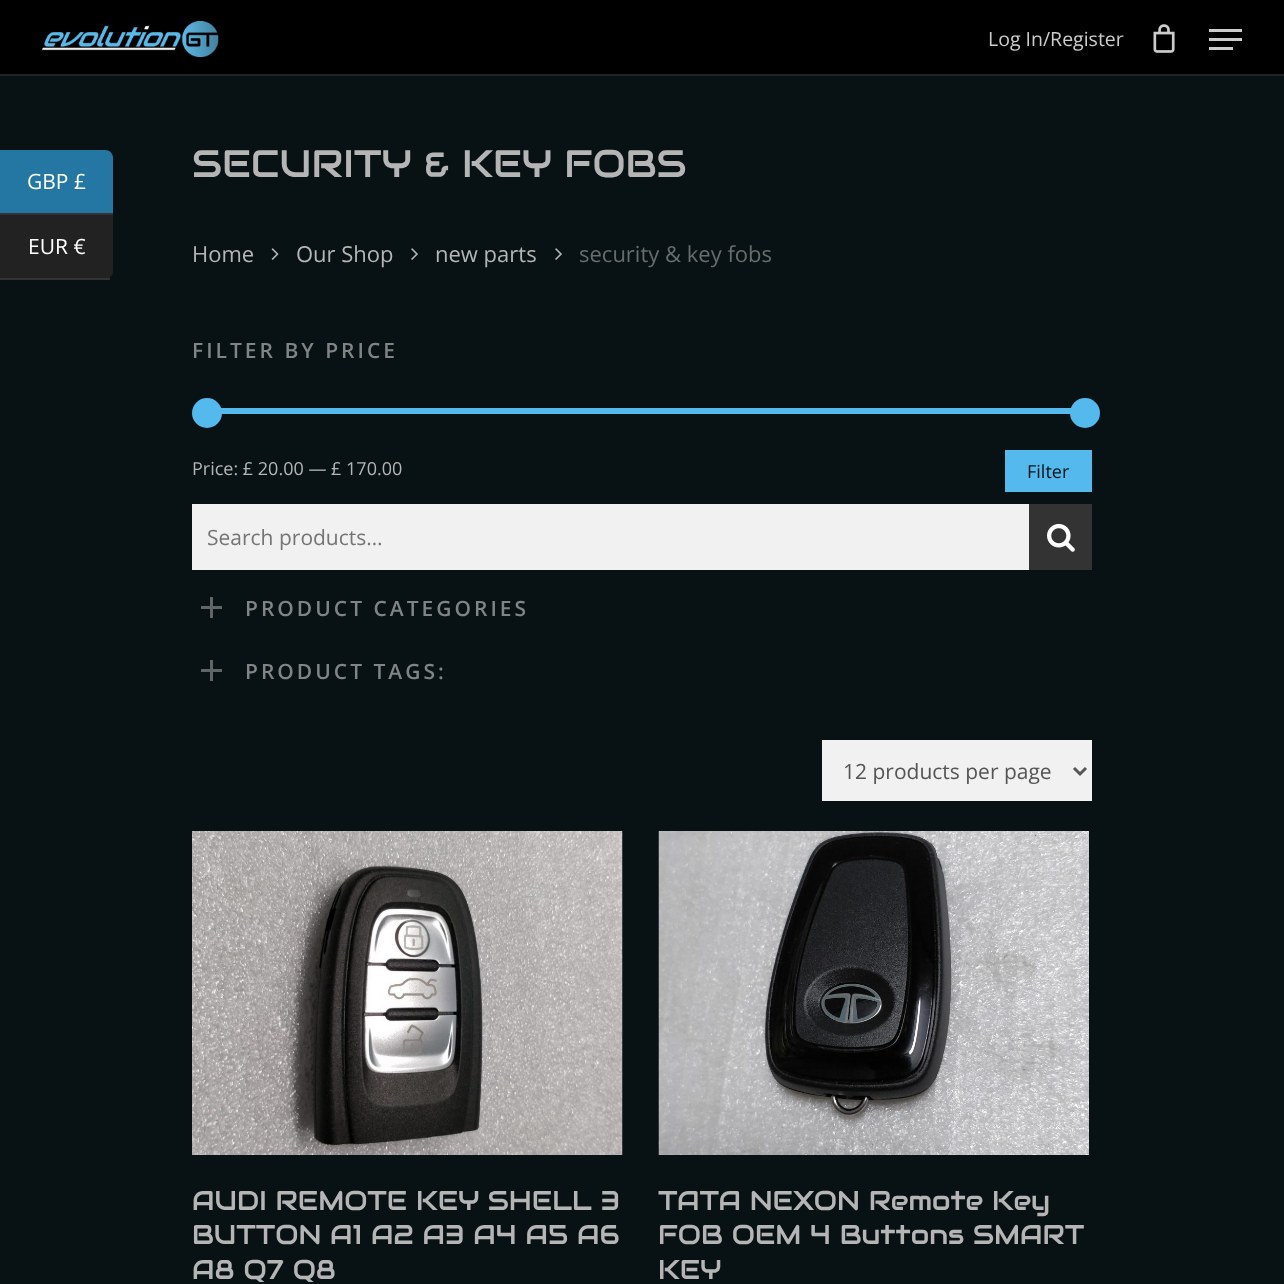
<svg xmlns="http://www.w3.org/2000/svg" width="1284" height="1284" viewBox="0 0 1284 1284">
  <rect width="100%" height="100%" fill="#081214"/>
  <path d="M0 150H105C109.5 150 113 153.5 113 158V215H0Z" fill="#2377a2"/>
  <path d="M0 213h113v2H0z" fill="#333"/>
  <path d="M0 215H113V271C113 275.5 109.5 279 105 279H0Z" fill="#222"/>
  <path d="M0 278h110v2H0z" fill="#333"/>
  <path d="M0 0h1284v74H0z" fill="#000"/>
  <path d="M0 74h1284v2H0z" fill="#222"/>
  <image x="42" y="21" width="177" height="36" href="img/1.png"/>
  <image x="1153" y="24" width="22" height="29" href="img/2.png"/>
  <path d="M1209 29h33v3H1209z" fill="#ccc"/>
  <path d="M1209 47h24v3H1209z" fill="#ccc"/>
  <path d="M1209 38h33v3H1209z" fill="#ccc"/>
  <image x="271" y="248" width="8" height="12" href="img/3.png"/>
  <image x="411" y="248" width="7" height="12" href="img/4.png"/>
  <image x="555" y="248" width="7" height="12" href="img/4.png"/>
  <path d="M221 408h850v6H221z" fill="#54b9ec"/>
  <circle cx="207" cy="413" r="15" fill="#54b9ec"/>
  <circle cx="1085" cy="413" r="15" fill="#54b9ec"/>
  <path d="M1005 450h87v42H1005z" fill="#54b9ec"/>
  <path d="M192 504h837v66H192z" fill="#f1f1f1"/>
  <path d="M1029 504h63v66H1029z" fill="#333"/>
  <image x="1047" y="523" width="28" height="29" href="img/5.png"/>
  <path d="M210 597h3v21H210z" fill="#626565"/>
  <path d="M201 606h21v3H201z" fill="#626565"/>
  <path d="M210 660h3v21H210z" fill="#626565"/>
  <path d="M201 669h21v3H201z" fill="#626565"/>
  <path d="M822 740h270v61H822z" fill="#f1f1f1"/>
  <path d="M1074 768L1080 774L1086 768" fill="none" stroke="#555" stroke-width="3"/>
  <image x="192" y="831" width="431" height="324" href="img/6.png"/>
  <image x="658" y="831" width="431" height="324" href="img/7.png"/>
  <g font-family="Open Sans" font-size="21" fill="#fff">
    <text x="27" y="189">GBP £</text>
    <text x="28" y="254">EUR €</text>
  </g>
  <text x="988" y="46" font-family="Open Sans" font-size="19.5" fill="#ccc">Log In/Register</text>
  <text x="192" y="177" font-family="Audiowide" font-size="38.4" fill="#b5b5b5">SECURITY &amp; KEY FOBS</text>
  <g font-family="Open Sans" font-size="22" fill="#b5b5b5">
    <text x="192" y="262">Home</text>
    <text x="296" y="262">Our Shop</text>
    <text x="435" y="262">new parts</text>
  </g>
  <text x="579" y="262" font-family="Open Sans" font-size="22" fill="#676c6d">security &amp; key fobs</text>
  <text x="192" y="358" font-family="Open Sans" font-size="21" font-weight="600" letter-spacing="3" fill="#818485">FILTER BY PRICE</text>
  <text x="192" y="475" font-family="Open Sans" font-size="18" fill="#b5b5b5">Price: £ 20.00 — £ 170.00</text>
  <text x="1027" y="478" font-family="Open Sans" font-size="18" fill="#081214">Filter</text>
  <text x="207" y="545" font-family="Open Sans" font-size="21" fill="#757575">Search products…</text>
  <g font-family="Open Sans" font-size="21" font-weight="600" letter-spacing="3" fill="#818485">
    <text x="245" y="616">PRODUCT CATEGORIES</text>
    <text x="245" y="679">PRODUCT TAGS:</text>
  </g>
  <text x="843" y="779" font-family="Open Sans" font-size="21" fill="#555">12 products per page</text>
  <g font-family="Audiowide" font-size="27" fill="#b5b5b5">
    <text x="192" y="1210">AUDI REMOTE KEY SHELL 3</text>
    <text x="192" y="1244">BUTTON A1 A2 A3 A4 A5 A6</text>
    <text x="192" y="1279">A8 Q7 Q8</text>
    <text x="658" y="1210">TATA NEXON Remote Key</text>
    <text x="658" y="1244">FOB OEM 4 Buttons SMART</text>
    <text x="658" y="1279">KEY</text>
  </g>
</svg>
